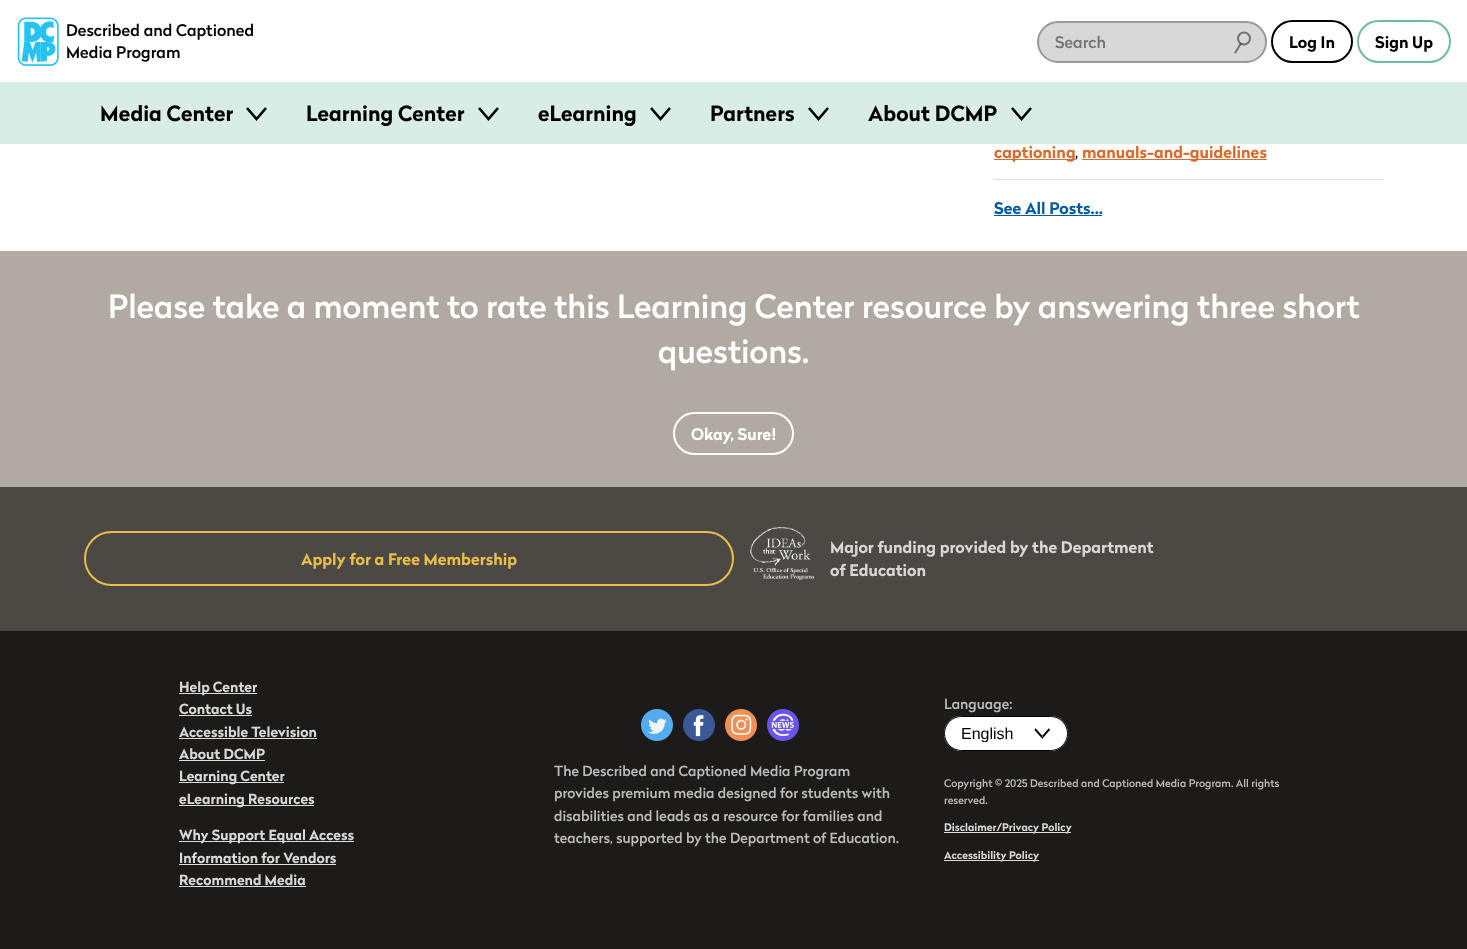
<svg xmlns="http://www.w3.org/2000/svg" width="1467" height="949" viewBox="0 0 1467 949">
  <defs>
    <clipPath id="clip1"><path d="M961 725h58v17H961z"/></clipPath>
  </defs>
  <rect width="100%" height="100%" fill="#fff"/>
  <image x="17" y="17" width="42" height="49" href="img/1.png"/>
  <rect x="1038" y="22" width="228" height="40" rx="20" fill="#d8d8d8" stroke="#999" stroke-width="2"/>
  <circle cx="1244" cy="38.5" r="6" fill="none" stroke="#747271" stroke-width="2"/>
  <path d="M1240.5 44L1235.5 52.5" fill="none" stroke="#2b292794" stroke-width="2" stroke-linecap="square"/>
  <rect x="1272" y="21" width="80" height="41" rx="20.5" fill="none" stroke="#010101" stroke-width="2"/>
  <rect x="1358" y="21" width="92" height="41" rx="20.5" fill="none" stroke="#6ebda0" stroke-width="2"/>
  <path d="M0 82h1467v62H0z" fill="#d7ede5"/>
  <path d="M247 108L256.5 119L266 108" fill="none" stroke="#010101" stroke-width="2.6"/>
  <path d="M479 108L488.5 119L498 108" fill="none" stroke="#010101" stroke-width="2.6"/>
  <path d="M651 108L660.5 119L670 108" fill="none" stroke="#010101" stroke-width="2.6"/>
  <path d="M809 108L818.5 119L828 108" fill="none" stroke="#010101" stroke-width="2.6"/>
  <path d="M1012 108L1021.5 119L1031 108" fill="none" stroke="#010101" stroke-width="2.6"/>
  <path d="M994 179h390v1H994z" fill="#ddd"/>
  <path d="M994 159h81v1H994z" fill="#d86c2c"/>
  <path d="M1082 159h185v1H1082z" fill="#d86c2c"/>
  <path d="M994 215h108v1H994z" fill="#005aa1"/>
  <path d="M0 251h1467v236H0z" fill="#b1aaa2"/>
  <rect x="674" y="413" width="119" height="41" rx="20.5" fill="none" stroke="#fff" stroke-width="2"/>
  <path d="M0 487h1467v144H0z" fill="#4c4944"/>
  <rect x="85" y="532" width="648" height="53" rx="26.5" fill="none" stroke="#ebbe4b" stroke-width="2"/>
  <image x="750" y="527" width="64" height="53" href="img/2.png"/>
  <path d="M0 631h1467v318H0z" fill="#1c1b1a"/>
  <path d="M179 693h78v1H179z" fill="#ddd"/>
  <path d="M179 715h73v1H179z" fill="#ddd"/>
  <path d="M179 738h138v1H179z" fill="#ddd"/>
  <path d="M179 760h86v1H179z" fill="#ddd"/>
  <path d="M179 782h105v1H179z" fill="#ddd"/>
  <path d="M179 805h135v1H179z" fill="#ddd"/>
  <path d="M179 841h175v1H179z" fill="#ddd"/>
  <path d="M179 864h157v1H179z" fill="#ddd"/>
  <path d="M179 886h127v1H179z" fill="#ddd"/>
  <image x="641" y="709" width="32" height="32" href="img/3.png"/>
  <image x="683" y="709" width="32" height="32" href="img/4.png"/>
  <image x="725" y="709" width="32" height="32" href="img/5.png"/>
  <image x="767" y="709" width="32" height="32" href="img/6.png"/>
  <rect x="944" y="716" width="124" height="35" rx="17.5" fill="#fff"/>
  <image x="1034" y="728" width="17" height="11" href="img/7.png"/>
  <rect x="944.5" y="716.5" width="123" height="34" rx="17" fill="none" stroke="#000"/>
  <path d="M944 832h127v1H944z" fill="#ddd"/>
  <path d="M944 860h95v1H944z" fill="#ddd"/>
  <g font-family="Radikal" font-size="16" font-weight="500" fill="#000">
    <text x="66" y="36">Described and Captioned</text>
    <text x="66" y="58">Media Program</text>
  </g>
  <text x="1055" y="48" font-family="Radikal" font-size="16" font-weight="500" fill="#757575">Search</text>
  <g font-family="Radikal" font-size="16" font-weight="bold" fill="#000">
    <text x="1289" y="48">Log In</text>
    <text x="1375" y="48">Sign Up</text>
  </g>
  <g font-family="Radikal" font-size="21" font-weight="bold" fill="#000">
    <text x="100" y="121">Media Center</text>
    <text x="306" y="121">Learning Center</text>
    <text x="538" y="121">eLearning</text>
    <text x="710" y="121">Partners</text>
    <text x="868" y="121">About DCMP</text>
  </g>
  <text x="994" y="158" font-family="Radikal" font-size="16" font-weight="bold" fill="#d86c2c">captioning</text>
  <text x="1075" y="158" font-family="Radikal" font-size="16" font-weight="500" fill="#000">,</text>
  <text x="1082" y="158" font-family="Radikal" font-size="16" font-weight="bold" fill="#d86c2c">manuals-and-guidelines</text>
  <text x="994" y="214" font-family="Radikal" font-size="16" font-weight="bold" fill="#005aa1">See All Posts...</text>
  <g font-family="Radikal" font-size="32" font-weight="500" fill="#fff">
    <text x="108" y="318">Please take a moment to rate this Learning Center resource by answering three short</text>
    <text x="658" y="363">questions.</text>
  </g>
  <text x="691" y="440" font-family="Radikal" font-size="16" font-weight="bold" fill="#fff">Okay, Sure!</text>
  <text x="301" y="565" font-family="Radikal" font-size="16" font-weight="bold" fill="#ebbe4b">Apply for a Free Membership</text>
  <g font-family="Radikal" font-size="16" font-weight="bold" fill="#d8d8d8">
    <text x="830" y="553">Major funding provided by the Department</text>
    <text x="830" y="576">of Education</text>
  </g>
  <g font-family="Radikal" font-size="14" font-weight="bold" fill="#d8d8d8">
    <text x="179" y="692">Help Center</text>
    <text x="179" y="714">Contact Us</text>
    <text x="179" y="737">Accessible Television</text>
    <text x="179" y="759">About DCMP</text>
    <text x="179" y="781">Learning Center</text>
    <text x="179" y="804">eLearning Resources</text>
    <text x="179" y="840">Why Support Equal Access</text>
    <text x="179" y="863">Information for Vendors</text>
    <text x="179" y="885">Recommend Media</text>
  </g>
  <g font-family="Radikal" font-size="14" font-weight="500" fill="#bbb">
    <text x="554" y="776">The Described and Captioned Media Program</text>
    <text x="554" y="798">provides premium media designed for students with</text>
    <text x="554" y="821">disabilities and leads as a resource for families and</text>
    <text x="554" y="843">teachers, supported by the Department of Education.</text>
    <text x="944" y="709">Language:</text>
  </g>
  <g clip-path="url(#clip1)">
    <text x="961" y="739" font-family="Liberation Sans" font-size="16" fill="#000">English</text>
  </g>
  <g font-family="Radikal" font-size="10.5" font-weight="500" fill="#bbb">
    <text x="944" y="787">Copyright © 2025 Described and Captioned Media Program. All rights</text>
    <text x="944" y="804">reserved.</text>
  </g>
  <g font-family="Radikal" font-size="10.5" font-weight="bold" fill="#d8d8d8">
    <text x="944" y="831">Disclaimer/Privacy Policy</text>
    <text x="944" y="859">Accessibility Policy</text>
  </g>
</svg>
